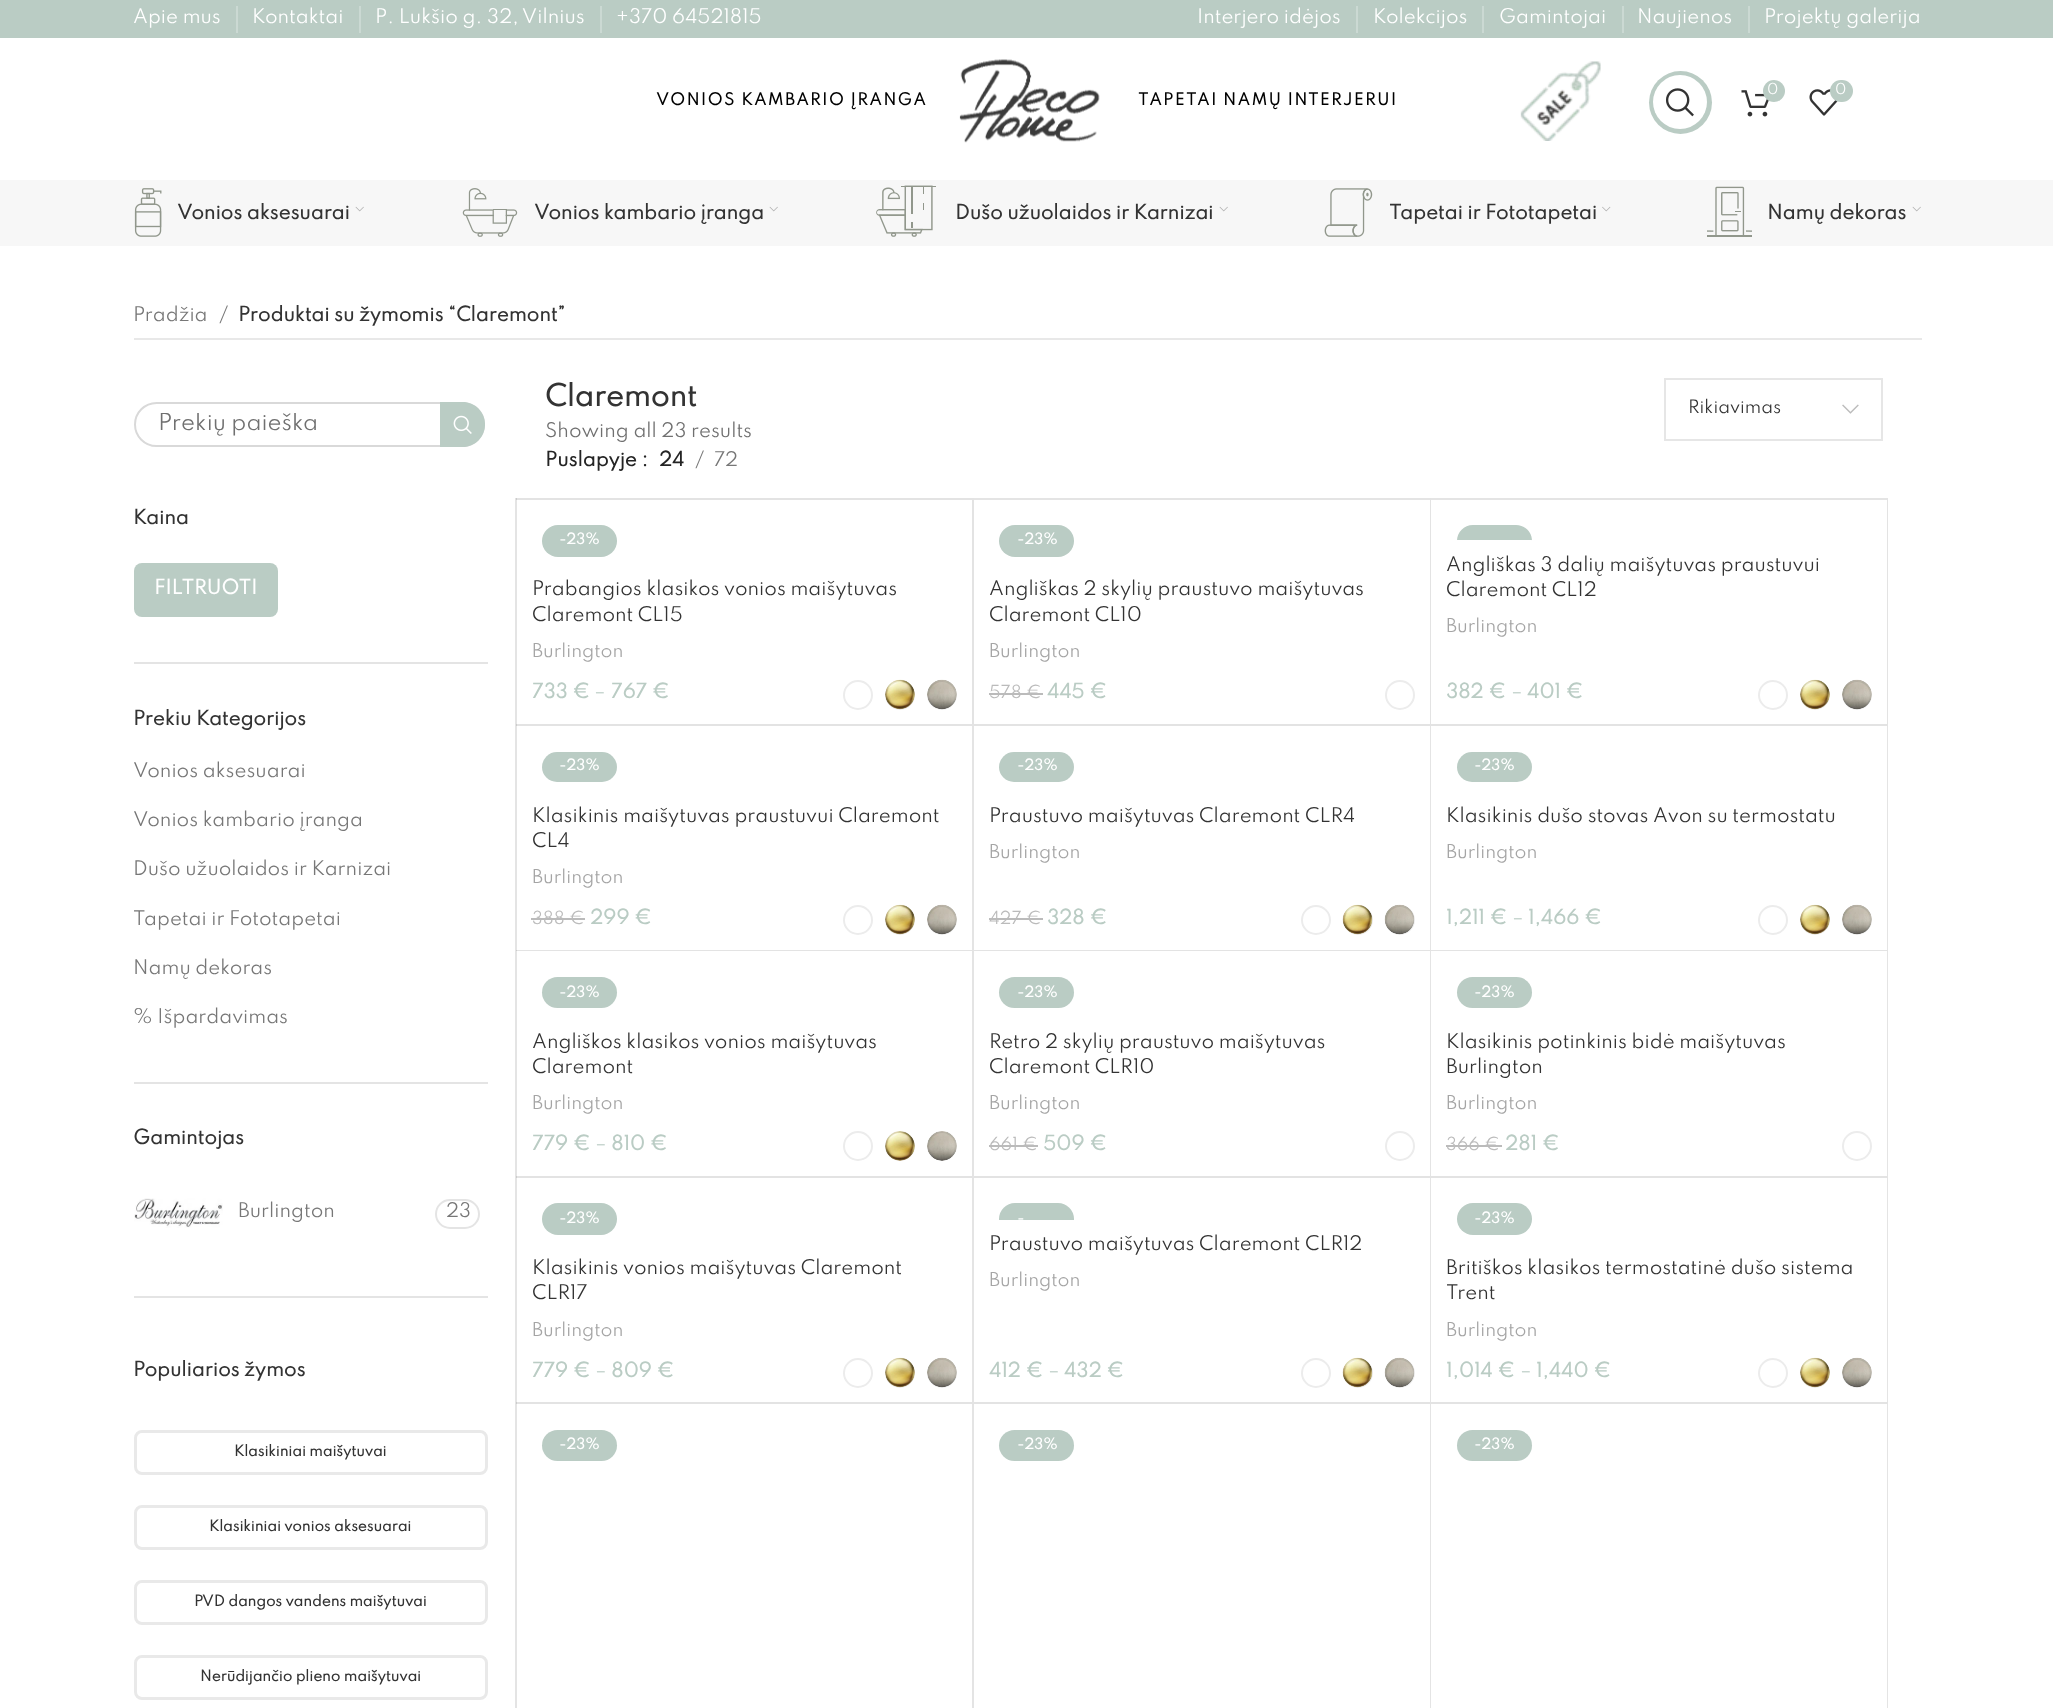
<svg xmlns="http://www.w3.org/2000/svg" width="2053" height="1708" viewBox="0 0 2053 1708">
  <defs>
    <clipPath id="clip1"><path d="M159 413h279v25H159z"/></clipPath>
    <clipPath id="clip2"><path d="M989 1193h426v27H989z"/></clipPath>
  </defs>
  <rect width="100%" height="100%" fill="#fff"/>
  <path d="M0 0h2053v38H0z" fill="#baccc4"/>
  <path d="M236 6h2v27H236z" fill="#cbd9d3"/>
  <path d="M359 6h2v27H359z" fill="#cbd9d3"/>
  <path d="M600 6h2v27H600z" fill="#cbd9d3"/>
  <path d="M1356 6h2v27H1356z" fill="#cbd9d3"/>
  <path d="M1482 6h2v27H1482z" fill="#cbd9d3"/>
  <path d="M1622 6h2v27H1622z" fill="#cbd9d3"/>
  <path d="M1748 6h2v27H1748z" fill="#cbd9d3"/>
  <image x="1520" y="61" width="81" height="80" href="img/1.png"/>
  <circle cx="1680.5" cy="102.5" r="31.5" fill="#baccc4"/>
  <circle cx="1680" cy="102" r="27" fill="#fff"/>
  <image x="1666" y="88" width="28" height="29" href="img/2.png"/>
  <image x="1741" y="90" width="28" height="27" href="img/3.png"/>
  <circle cx="1774" cy="91" r="11" fill="#baccc4"/>
  <image x="1809" y="89" width="29" height="27" href="img/4.png"/>
  <rect x="1830" y="80" width="23" height="22" rx="11" fill="#baccc4"/>
  <image x="959" y="59" width="141" height="84" href="img/5.png"/>
  <path d="M0 180h2053v66H0z" fill="#f7f7f7"/>
  <image x="134" y="188" width="28" height="49" href="img/6.png"/>
  <image x="355" y="206" width="9" height="6" href="img/7.png"/>
  <image x="462" y="188" width="56" height="49" href="img/8.png"/>
  <image x="769" y="206" width="9" height="6" href="img/7.png"/>
  <image x="876" y="185" width="60" height="52" href="img/9.png"/>
  <image x="1219" y="206" width="9" height="6" href="img/7.png"/>
  <image x="1324" y="188" width="49" height="49" href="img/10.png"/>
  <image x="1602" y="206" width="9" height="6" href="img/11.png"/>
  <image x="1707" y="186" width="45" height="51" href="img/12.png"/>
  <image x="1912" y="206" width="9" height="6" href="img/7.png"/>
  <path d="M134 338h1788v2H134z" fill="#e8e8e8"/>
  <rect x="135" y="403" width="349" height="43" rx="21.5" fill="none" stroke="#d9d9d9" stroke-width="2"/>
  <path d="M440 402H462.5C475 402 485 412 485 424.5C485 437 475 447 462.5 447H440Z" fill="#baccc4"/>
  <image x="453" y="415" width="19" height="19" href="img/13.png"/>
  <path d="M134 662h354v2H134z" fill="#e4e4e4"/>
  <rect x="134" y="563" width="144" height="54" rx="8" fill="#baccc4"/>
  <path d="M134 1082h354v2H134z" fill="#e4e4e4"/>
  <path d="M134 1296h354v2H134z" fill="#e4e4e4"/>
  <image x="134" y="1198" width="89" height="30" href="img/14.png"/>
  <rect x="436" y="1200" width="43" height="28" rx="14" fill="none" stroke="#e4e4e4" stroke-width="2"/>
  <rect x="135.5" y="1431.5" width="351" height="42" rx="6.5" fill="none" stroke="#e9e9e9" stroke-width="3"/>
  <rect x="135.5" y="1506.5" width="351" height="42" rx="6.5" fill="none" stroke="#e9e9e9" stroke-width="3"/>
  <rect x="135.5" y="1581.5" width="351" height="42" rx="6.5" fill="none" stroke="#e9e9e9" stroke-width="3"/>
  <rect x="135.5" y="1656.5" width="351" height="42" rx="6.5" fill="none" stroke="#e9e9e9" stroke-width="3"/>
  <path d="M1665 379h217v61H1665z" fill="none" stroke="#e6e6e6" stroke-width="2"/>
  <image x="1842" y="404" width="17" height="10" href="img/15.png"/>
  <path d="M515 498h2v1210H515z" fill="#e4e4e4"/>
  <path d="M516 498H974L972 500H516Z" fill="#0000001c"/>
  <path d="M974 498V726L972 724V500Z" fill="#0000001c"/>
  <path d="M974 726H516V724H972Z" fill="#0000001c"/>
  <rect x="542" y="525" width="75" height="32" rx="16" fill="#baccc4"/>
  <circle cx="858" cy="695" r="14" fill="none" stroke="#ececec" stroke-width="2"/>
  <image x="885" y="679" width="30" height="31" href="img/16.png"/>
  <circle cx="900" cy="695" r="14" fill="none" stroke="#00000012" stroke-width="2"/>
  <image x="927" y="679" width="30" height="31" href="img/17.png"/>
  <circle cx="942" cy="695" r="14" fill="none" stroke="#00000012" stroke-width="2"/>
  <path d="M974 498H1431L1430 500H974Z" fill="#e4e4e4"/>
  <path d="M1431 498V726L1430 724V500Z" fill="#0000001c"/>
  <path d="M1431 726H974V724H1430Z" fill="#0000001c"/>
  <rect x="999" y="525" width="75" height="32" rx="16" fill="#baccc4"/>
  <path d="M989 693h54v2H989z" fill="#bbb"/>
  <circle cx="1400" cy="695" r="14" fill="none" stroke="#ececec" stroke-width="2"/>
  <path d="M1431 498H1888L1887 500H1431Z" fill="#e4e4e4"/>
  <path d="M1888 498V726L1887 724V500Z" fill="#0000001c"/>
  <path d="M1888 726H1431V724H1887Z" fill="#0000001c"/>
  <path d="M1473 525H1516C1525 525 1532 532 1532 541V540H1457V541C1457 532 1464 525 1473 525Z" fill="#baccc4"/>
  <circle cx="1773" cy="695" r="14" fill="none" stroke="#ececec" stroke-width="2"/>
  <image x="1800" y="679" width="30" height="31" href="img/18.png"/>
  <circle cx="1815" cy="695" r="14" fill="none" stroke="#00000012" stroke-width="2"/>
  <image x="1842" y="679" width="30" height="31" href="img/19.png"/>
  <circle cx="1857" cy="695" r="14" fill="none" stroke="#00000012" stroke-width="2"/>
  <path d="M974 726V951L972 950V726Z" fill="#e4e4e4"/>
  <path d="M974 951H516V950H972Z" fill="#0000001c"/>
  <rect x="542" y="752" width="75" height="30" rx="15" fill="#baccc4"/>
  <path d="M531 918h54v2H531z" fill="#bbb"/>
  <circle cx="858" cy="920" r="14" fill="none" stroke="#ececec" stroke-width="2"/>
  <image x="885" y="904" width="30" height="31" href="img/16.png"/>
  <circle cx="900" cy="920" r="14" fill="none" stroke="#00000012" stroke-width="2"/>
  <image x="927" y="904" width="30" height="31" href="img/17.png"/>
  <circle cx="942" cy="920" r="14" fill="none" stroke="#00000012" stroke-width="2"/>
  <path d="M1431 726V951L1430 950V726Z" fill="#e4e4e4"/>
  <path d="M1431 951H974V950H1430Z" fill="#0000001c"/>
  <rect x="999" y="752" width="75" height="30" rx="15" fill="#baccc4"/>
  <path d="M989 918h54v2H989z" fill="#bbb"/>
  <circle cx="1316" cy="920" r="14" fill="none" stroke="#ececec" stroke-width="2"/>
  <image x="1342" y="904" width="31" height="31" href="img/20.png"/>
  <circle cx="1358" cy="920" r="14" fill="none" stroke="#00000012" stroke-width="2"/>
  <image x="1384" y="904" width="31" height="31" href="img/21.png"/>
  <circle cx="1400" cy="920" r="14" fill="none" stroke="#00000012" stroke-width="2"/>
  <path d="M1888 726V951L1887 950V726Z" fill="#e4e4e4"/>
  <path d="M1888 951H1431V950H1887Z" fill="#0000001c"/>
  <rect x="1457" y="752" width="75" height="30" rx="15" fill="#baccc4"/>
  <circle cx="1773" cy="920" r="14" fill="none" stroke="#ececec" stroke-width="2"/>
  <image x="1800" y="904" width="30" height="31" href="img/18.png"/>
  <circle cx="1815" cy="920" r="14" fill="none" stroke="#00000012" stroke-width="2"/>
  <image x="1842" y="904" width="30" height="31" href="img/19.png"/>
  <circle cx="1857" cy="920" r="14" fill="none" stroke="#00000012" stroke-width="2"/>
  <path d="M974 951V1178L972 1176V951Z" fill="#e4e4e4"/>
  <path d="M974 1178H516V1176H972Z" fill="#0000001c"/>
  <rect x="542" y="977" width="75" height="31" rx="15.5" fill="#baccc4"/>
  <circle cx="858" cy="1146" r="14" fill="none" stroke="#ececec" stroke-width="2"/>
  <image x="885" y="1131" width="30" height="30" href="img/22.png"/>
  <circle cx="900" cy="1146" r="14" fill="none" stroke="#00000012" stroke-width="2"/>
  <image x="927" y="1131" width="30" height="30" href="img/23.png"/>
  <circle cx="942" cy="1146" r="14" fill="none" stroke="#00000012" stroke-width="2"/>
  <path d="M1431 951V1178L1430 1176V951Z" fill="#e4e4e4"/>
  <path d="M1431 1178H974V1176H1430Z" fill="#0000001c"/>
  <rect x="999" y="977" width="75" height="31" rx="15.5" fill="#baccc4"/>
  <path d="M989 1145h49v2H989z" fill="#bbb"/>
  <circle cx="1400" cy="1146" r="14" fill="none" stroke="#ececec" stroke-width="2"/>
  <path d="M1888 951V1178L1887 1176V951Z" fill="#e4e4e4"/>
  <path d="M1888 1178H1431V1176H1887Z" fill="#0000001c"/>
  <rect x="1457" y="977" width="75" height="31" rx="15.5" fill="#baccc4"/>
  <path d="M1446 1145h56v2H1446z" fill="#bbb"/>
  <circle cx="1857" cy="1146" r="14" fill="none" stroke="#ececec" stroke-width="2"/>
  <path d="M974 1178V1404L972 1402V1178Z" fill="#e4e4e4"/>
  <path d="M974 1404H516V1402H972Z" fill="#0000001c"/>
  <rect x="542" y="1203" width="75" height="32" rx="16" fill="#baccc4"/>
  <circle cx="858" cy="1373" r="14" fill="none" stroke="#ececec" stroke-width="2"/>
  <image x="885" y="1357" width="30" height="31" href="img/16.png"/>
  <circle cx="900" cy="1373" r="14" fill="none" stroke="#00000012" stroke-width="2"/>
  <image x="927" y="1357" width="30" height="31" href="img/17.png"/>
  <circle cx="942" cy="1373" r="14" fill="none" stroke="#00000012" stroke-width="2"/>
  <path d="M1431 1178V1404L1430 1402V1178Z" fill="#e4e4e4"/>
  <path d="M1431 1404H974V1402H1430Z" fill="#0000001c"/>
  <circle cx="1316" cy="1373" r="14" fill="none" stroke="#ececec" stroke-width="2"/>
  <image x="1342" y="1357" width="31" height="31" href="img/20.png"/>
  <circle cx="1358" cy="1373" r="14" fill="none" stroke="#00000012" stroke-width="2"/>
  <image x="1384" y="1357" width="31" height="31" href="img/21.png"/>
  <circle cx="1400" cy="1373" r="14" fill="none" stroke="#00000012" stroke-width="2"/>
  <path d="M1888 1178V1404L1887 1402V1178Z" fill="#e4e4e4"/>
  <path d="M1888 1404H1431V1402H1887Z" fill="#0000001c"/>
  <rect x="1457" y="1203" width="75" height="32" rx="16" fill="#baccc4"/>
  <circle cx="1773" cy="1373" r="14" fill="none" stroke="#ececec" stroke-width="2"/>
  <image x="1800" y="1357" width="30" height="31" href="img/18.png"/>
  <circle cx="1815" cy="1373" r="14" fill="none" stroke="#00000012" stroke-width="2"/>
  <image x="1842" y="1357" width="30" height="31" href="img/19.png"/>
  <circle cx="1857" cy="1373" r="14" fill="none" stroke="#00000012" stroke-width="2"/>
  <path d="M974 1404V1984L972 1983V1404Z" fill="#e4e4e4"/>
  <rect x="542" y="1430" width="75" height="31" rx="15.5" fill="#baccc4"/>
  <path d="M1431 1404V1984L1430 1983V1404Z" fill="#e4e4e4"/>
  <rect x="999" y="1430" width="75" height="31" rx="15.5" fill="#baccc4"/>
  <path d="M1888 1404V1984L1887 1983V1404Z" fill="#e4e4e4"/>
  <rect x="1457" y="1430" width="75" height="31" rx="15.5" fill="#baccc4"/>
  <g font-family="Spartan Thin" font-size="18" font-weight="100" fill="#fff">
    <text x="133" y="23">Apie mus</text>
    <text x="252" y="23">Kontaktai</text>
    <text x="375" y="23">P. Lukšio g. 32, Vilnius</text>
    <text x="616" y="23">+370 64521815</text>
    <text x="1197" y="23">Interjero idėjos</text>
    <text x="1373" y="23">Kolekcijos</text>
    <text x="1499" y="23">Gamintojai</text>
    <text x="1637" y="23">Naujienos</text>
    <text x="1764" y="23">Projektų galerija</text>
  </g>
  <g font-family="Spartan Thin" font-size="13.5" font-weight="100" fill="#fff">
    <text x="1767" y="94">0</text>
    <text x="1835" y="94">0</text>
  </g>
  <g font-family="Spartan Thin" font-size="15" font-weight="bold" letter-spacing="1.5" fill="#000">
    <text x="656" y="105">VONIOS KAMBARIO ĮRANGA</text>
    <text x="1138" y="105">TAPETAI NAMŲ INTERJERUI</text>
  </g>
  <g font-family="Spartan Thin" font-size="18" font-weight="bold" fill="#333">
    <text x="177" y="219">Vonios aksesuarai</text>
    <text x="534" y="219">Vonios kambario įranga</text>
    <text x="955" y="219">Dušo užuolaidos ir Karnizai</text>
    <text x="1389" y="219">Tapetai ir Fototapetai</text>
    <text x="1767" y="219">Namų dekoras</text>
  </g>
  <g font-family="Spartan Thin" font-size="18" font-weight="100" fill="#777">
    <text x="133" y="321">Pradžia</text>
    <text x="219" y="321">/</text>
  </g>
  <text x="238" y="321" font-family="Spartan Thin" font-size="18" font-weight="bold" fill="#333">Produktai su žymomis “Claremont”</text>
  <g clip-path="url(#clip1)">
    <text x="158" y="430" font-family="Spartan Thin" font-size="21" font-weight="100" fill="#707070">Prekių paieška</text>
  </g>
  <text x="133" y="524" font-family="Spartan Thin" font-size="18" font-weight="bold" fill="#333">Kaina</text>
  <text x="154" y="594" font-family="Spartan Thin" font-size="18" font-weight="bold" fill="#fff">FILTRUOTI</text>
  <text x="133" y="725" font-family="Spartan Thin" font-size="18" font-weight="bold" fill="#333">Prekiu Kategorijos</text>
  <g font-family="Spartan Thin" font-size="18" font-weight="100" fill="#777">
    <text x="133" y="777">Vonios aksesuarai</text>
    <text x="133" y="826">Vonios kambario įranga</text>
    <text x="133" y="875">Dušo užuolaidos ir Karnizai</text>
    <text x="133" y="925">Tapetai ir Fototapetai</text>
    <text x="133" y="974">Namų dekoras</text>
    <text x="133" y="1023">% Išpardavimas</text>
  </g>
  <text x="133" y="1144" font-family="Spartan Thin" font-size="18" font-weight="bold" fill="#333">Gamintojas</text>
  <g font-family="Spartan Thin" font-size="18" font-weight="100" fill="#777">
    <text x="238" y="1217">Burlington</text>
    <text x="446" y="1217">23</text>
  </g>
  <text x="133" y="1376" font-family="Spartan Thin" font-size="18" font-weight="bold" fill="#333">Populiarios žymos</text>
  <g font-family="Spartan Thin" font-size="13.5" font-weight="bold" fill="#333">
    <text x="234" y="1456">Klasikiniai maišytuvai</text>
    <text x="209" y="1531">Klasikiniai vonios aksesuarai</text>
    <text x="194" y="1606">PVD dangos vandens maišytuvai</text>
    <text x="200" y="1681">Nerūdijančio plieno maišytuvai</text>
  </g>
  <text x="545" y="406" font-family="Spartan Thin" font-size="27" font-weight="bold" fill="#333">Claremont</text>
  <text x="545" y="437" font-family="Spartan Thin" font-size="18" font-weight="100" fill="#707070">Showing all 23 results</text>
  <g font-family="Spartan Thin" font-size="18" font-weight="bold" fill="#242424">
    <text x="545" y="466">Puslapyje :</text>
    <text x="659" y="466">24</text>
  </g>
  <g font-family="Spartan Thin" font-size="18" font-weight="100" fill="#777">
    <text x="695" y="466">/</text>
    <text x="714" y="466">72</text>
  </g>
  <text x="1688" y="413" font-family="Spartan Thin" font-size="16.5" font-weight="100" fill="#333">Rikiavimas</text>
  <text x="559" y="544" font-family="Spartan Thin" font-size="13.5" font-weight="bold" fill="#fff">-23%</text>
  <g font-family="Spartan Thin" font-size="18" font-weight="100" fill="#333">
    <text x="532" y="595">Prabangios klasikos vonios maišytuvas</text>
    <text x="532" y="621">Claremont CL15</text>
  </g>
  <text x="532" y="657" font-family="Spartan Thin" font-size="17" font-weight="100" fill="#a5a5a5">Burlington</text>
  <text x="532" y="698" font-family="Spartan Thin" font-size="18" font-weight="bold" fill="#baccc4">733 €</text>
  <text x="594" y="698" font-family="Spartan Thin" font-size="18" font-weight="100" fill="#baccc4">–</text>
  <text x="611" y="698" font-family="Spartan Thin" font-size="18" font-weight="bold" fill="#baccc4">767 €</text>
  <text x="1017" y="544" font-family="Spartan Thin" font-size="13.5" font-weight="bold" fill="#fff">-23%</text>
  <g font-family="Spartan Thin" font-size="18" font-weight="100" fill="#333">
    <text x="989" y="595">Angliškas 2 skylių praustuvo maišytuvas</text>
    <text x="989" y="621">Claremont CL10</text>
  </g>
  <text x="989" y="657" font-family="Spartan Thin" font-size="17" font-weight="100" fill="#a5a5a5">Burlington</text>
  <text x="989" y="698" font-family="Spartan Thin" font-size="16" font-weight="100" fill="#bbb">578 €</text>
  <text x="1047" y="698" font-family="Spartan Thin" font-size="18" font-weight="bold" fill="#baccc4">445 €</text>
  <g font-family="Spartan Thin" font-size="18" font-weight="100" fill="#333">
    <text x="1446" y="571">Angliškas 3 dalių maišytuvas praustuvui</text>
    <text x="1446" y="596">Claremont CL12</text>
  </g>
  <text x="1446" y="632" font-family="Spartan Thin" font-size="17" font-weight="100" fill="#a5a5a5">Burlington</text>
  <text x="1446" y="698" font-family="Spartan Thin" font-size="18" font-weight="bold" fill="#baccc4">382 €</text>
  <text x="1511" y="698" font-family="Spartan Thin" font-size="18" font-weight="100" fill="#baccc4">–</text>
  <text x="1527" y="698" font-family="Spartan Thin" font-size="18" font-weight="bold" fill="#baccc4">401 €</text>
  <text x="559" y="770" font-family="Spartan Thin" font-size="13.5" font-weight="bold" fill="#fff">-23%</text>
  <g font-family="Spartan Thin" font-size="18" font-weight="100" fill="#333">
    <text x="532" y="822">Klasikinis maišytuvas praustuvui Claremont</text>
    <text x="532" y="847">CL4</text>
  </g>
  <text x="532" y="883" font-family="Spartan Thin" font-size="17" font-weight="100" fill="#a5a5a5">Burlington</text>
  <text x="532" y="924" font-family="Spartan Thin" font-size="16" font-weight="100" fill="#bbb">388 €</text>
  <text x="590" y="924" font-family="Spartan Thin" font-size="18" font-weight="bold" fill="#baccc4">299 €</text>
  <text x="1017" y="770" font-family="Spartan Thin" font-size="13.5" font-weight="bold" fill="#fff">-23%</text>
  <text x="989" y="822" font-family="Spartan Thin" font-size="18" font-weight="100" fill="#333">Praustuvo maišytuvas Claremont CLR4</text>
  <text x="989" y="858" font-family="Spartan Thin" font-size="17" font-weight="100" fill="#a5a5a5">Burlington</text>
  <text x="989" y="924" font-family="Spartan Thin" font-size="16" font-weight="100" fill="#bbb">427 €</text>
  <text x="1047" y="924" font-family="Spartan Thin" font-size="18" font-weight="bold" fill="#baccc4">328 €</text>
  <text x="1474" y="770" font-family="Spartan Thin" font-size="13.5" font-weight="bold" fill="#fff">-23%</text>
  <text x="1446" y="822" font-family="Spartan Thin" font-size="18" font-weight="100" fill="#333">Klasikinis dušo stovas Avon su termostatu</text>
  <text x="1446" y="858" font-family="Spartan Thin" font-size="17" font-weight="100" fill="#a5a5a5">Burlington</text>
  <text x="1446" y="924" font-family="Spartan Thin" font-size="18" font-weight="bold" fill="#baccc4">1,211 €</text>
  <text x="1512" y="924" font-family="Spartan Thin" font-size="18" font-weight="100" fill="#baccc4">–</text>
  <text x="1528" y="924" font-family="Spartan Thin" font-size="18" font-weight="bold" fill="#baccc4">1,466 €</text>
  <text x="559" y="997" font-family="Spartan Thin" font-size="13.5" font-weight="bold" fill="#fff">-23%</text>
  <g font-family="Spartan Thin" font-size="18" font-weight="100" fill="#333">
    <text x="532" y="1048">Angliškos klasikos vonios maišytuvas</text>
    <text x="532" y="1073">Claremont</text>
  </g>
  <text x="532" y="1109" font-family="Spartan Thin" font-size="17" font-weight="100" fill="#a5a5a5">Burlington</text>
  <text x="532" y="1150" font-family="Spartan Thin" font-size="18" font-weight="bold" fill="#baccc4">779 €</text>
  <text x="595" y="1150" font-family="Spartan Thin" font-size="18" font-weight="100" fill="#baccc4">–</text>
  <text x="611" y="1150" font-family="Spartan Thin" font-size="18" font-weight="bold" fill="#baccc4">810 €</text>
  <text x="1017" y="997" font-family="Spartan Thin" font-size="13.5" font-weight="bold" fill="#fff">-23%</text>
  <g font-family="Spartan Thin" font-size="18" font-weight="100" fill="#333">
    <text x="989" y="1048">Retro 2 skylių praustuvo maišytuvas</text>
    <text x="989" y="1073">Claremont CLR10</text>
  </g>
  <text x="989" y="1109" font-family="Spartan Thin" font-size="17" font-weight="100" fill="#a5a5a5">Burlington</text>
  <text x="989" y="1150" font-family="Spartan Thin" font-size="16" font-weight="100" fill="#bbb">661 €</text>
  <text x="1043" y="1150" font-family="Spartan Thin" font-size="18" font-weight="bold" fill="#baccc4">509 €</text>
  <text x="1474" y="997" font-family="Spartan Thin" font-size="13.5" font-weight="bold" fill="#fff">-23%</text>
  <g font-family="Spartan Thin" font-size="18" font-weight="100" fill="#333">
    <text x="1446" y="1048">Klasikinis potinkinis bidė maišytuvas</text>
    <text x="1446" y="1073">Burlington</text>
  </g>
  <text x="1446" y="1109" font-family="Spartan Thin" font-size="17" font-weight="100" fill="#a5a5a5">Burlington</text>
  <text x="1446" y="1150" font-family="Spartan Thin" font-size="16" font-weight="100" fill="#bbb">366 €</text>
  <text x="1505" y="1150" font-family="Spartan Thin" font-size="18" font-weight="bold" fill="#baccc4">281 €</text>
  <text x="559" y="1223" font-family="Spartan Thin" font-size="13.5" font-weight="bold" fill="#fff">-23%</text>
  <g font-family="Spartan Thin" font-size="18" font-weight="100" fill="#333">
    <text x="532" y="1274">Klasikinis vonios maišytuvas Claremont</text>
    <text x="532" y="1299">CLR17</text>
  </g>
  <text x="532" y="1336" font-family="Spartan Thin" font-size="17" font-weight="100" fill="#a5a5a5">Burlington</text>
  <text x="532" y="1377" font-family="Spartan Thin" font-size="18" font-weight="bold" fill="#baccc4">779 €</text>
  <text x="595" y="1377" font-family="Spartan Thin" font-size="18" font-weight="100" fill="#baccc4">–</text>
  <text x="611" y="1377" font-family="Spartan Thin" font-size="18" font-weight="bold" fill="#baccc4">809 €</text>
  <text x="989" y="1250" font-family="Spartan Thin" font-size="18" font-weight="100" fill="#333">Praustuvo maišytuvas Claremont CLR12</text>
  <g clip-path="url(#clip2)">
    <rect x="999" y="1203" width="75" height="32" rx="16" fill="#baccc4"/>
  </g>
  <text x="1017" y="1223" font-family="Spartan Thin" font-size="13.5" font-weight="bold" fill="#fff">-</text>
  <text x="989" y="1286" font-family="Spartan Thin" font-size="17" font-weight="100" fill="#a5a5a5">Burlington</text>
  <text x="989" y="1377" font-family="Spartan Thin" font-size="18" font-weight="bold" fill="#baccc4">412 €</text>
  <text x="1048" y="1377" font-family="Spartan Thin" font-size="18" font-weight="100" fill="#baccc4">–</text>
  <text x="1064" y="1377" font-family="Spartan Thin" font-size="18" font-weight="bold" fill="#baccc4">432 €</text>
  <text x="1474" y="1223" font-family="Spartan Thin" font-size="13.5" font-weight="bold" fill="#fff">-23%</text>
  <g font-family="Spartan Thin" font-size="18" font-weight="100" fill="#333">
    <text x="1446" y="1274">Britiškos klasikos termostatinė dušo sistema</text>
    <text x="1446" y="1299">Trent</text>
  </g>
  <text x="1446" y="1336" font-family="Spartan Thin" font-size="17" font-weight="100" fill="#a5a5a5">Burlington</text>
  <text x="1446" y="1377" font-family="Spartan Thin" font-size="18" font-weight="bold" fill="#baccc4">1,014 €</text>
  <text x="1520" y="1377" font-family="Spartan Thin" font-size="18" font-weight="100" fill="#baccc4">–</text>
  <text x="1536" y="1377" font-family="Spartan Thin" font-size="18" font-weight="bold" fill="#baccc4">1,440 €</text>
  <g font-family="Spartan Thin" font-size="13.5" font-weight="bold" fill="#fff">
    <text x="559" y="1449">-23%</text>
    <text x="1017" y="1449">-23%</text>
    <text x="1474" y="1449">-23%</text>
  </g>
</svg>
